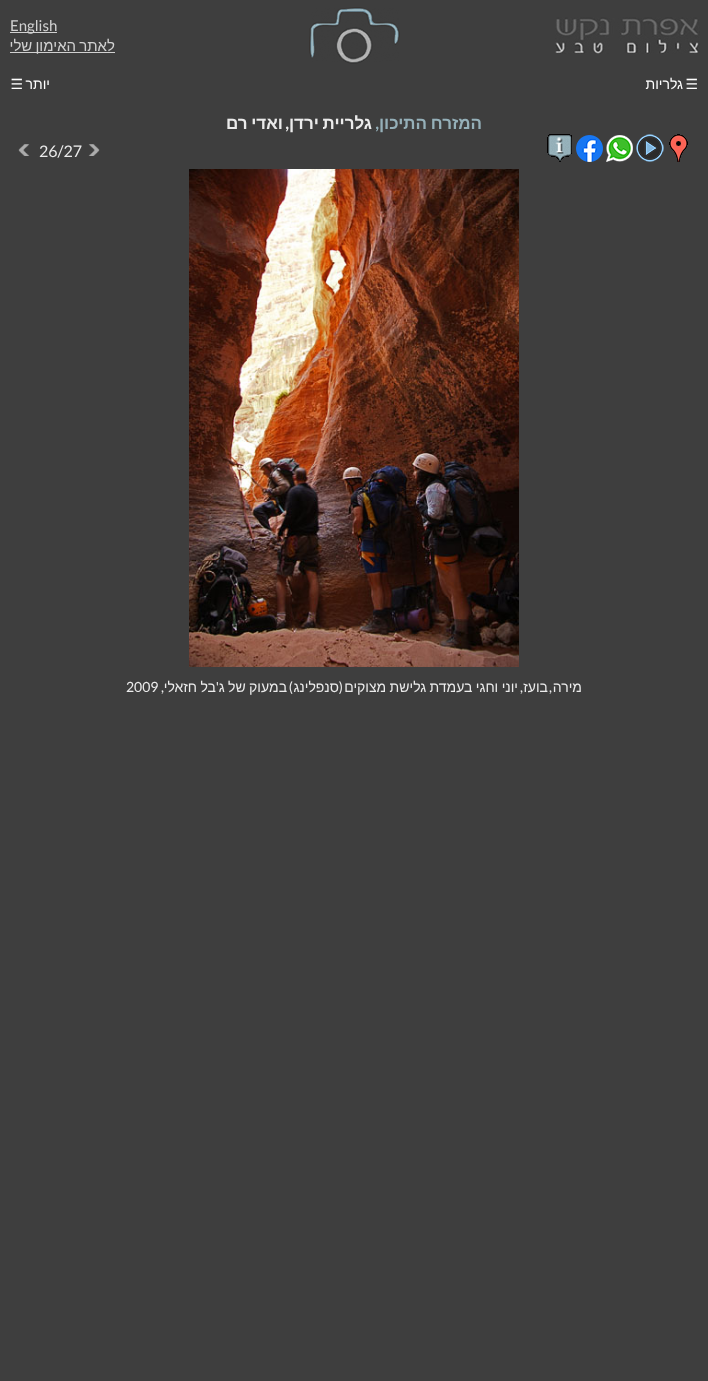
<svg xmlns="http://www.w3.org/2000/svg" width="708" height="1381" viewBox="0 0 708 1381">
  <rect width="100%" height="100%" fill="#3e3e3e"/>
  <image x="309" y="7" width="91" height="57" href="img/1.png"/>
  <image x="555" y="17" width="145" height="37" href="img/2.png"/>
  <path d="M10 32h47v1H10z" fill="#d1d1d1"/>
  <path d="M10 52h105v1H10z" fill="#d1d1d1"/>
  <image x="669" y="134" width="19" height="28" href="img/3.png"/>
  <image x="636" y="134" width="28" height="28" href="img/4.png"/>
  <image x="606" y="135" width="27" height="27" href="img/5.png"/>
  <image x="576" y="135" width="27" height="27" href="img/6.png"/>
  <image x="547" y="134" width="25" height="28" href="img/7.png"/>
  <image x="88" y="144" width="12" height="12" href="img/8.png"/>
  <image x="18" y="144" width="12" height="12" href="img/9.png"/>
  <image x="189" y="169" width="330" height="498" href="img/10.png"/>
  <text x="10" y="31" font-family="Lato" font-size="15" fill="#d1d1d1">English</text>
  <text x="115" y="51" word-spacing="-1" font-family="Liberation Sans" font-size="15" direction="rtl" fill="#d1d1d1">לאתר האימון שלי</text>
  <text x="698" y="89" font-family="DejaVu Sans" font-size="14" direction="rtl" fill="#fff">☰</text>
  <g font-family="Liberation Sans" font-size="14" direction="rtl" fill="#fff">
    <text x="683" y="89">גלריות</text>
    <text x="50" y="89">יותר</text>
  </g>
  <text x="23" y="89" font-family="DejaVu Sans" font-size="14" direction="rtl" fill="#fff">☰</text>
  <text x="482" y="129" word-spacing="-1" font-family="Liberation Sans" font-size="17" font-weight="bold" direction="rtl" fill="#95b0b9">המזרח התיכון</text>
  <text x="379" y="129" font-family="Lato" font-size="17" font-weight="bold" direction="rtl" fill="#95b0b9">,</text>
  <text x="372" y="129" word-spacing="-1" font-family="Liberation Sans" font-size="17" font-weight="bold" direction="rtl" fill="#ebebeb">גלריית ירדן</text>
  <text x="289" y="129" font-family="Lato" font-size="17" font-weight="bold" direction="rtl" fill="#ebebeb">,</text>
  <text x="283" y="129" word-spacing="-1" font-family="Liberation Sans" font-size="17" font-weight="bold" direction="rtl" fill="#ebebeb">ואדי רם</text>
  <text x="39" y="157" font-family="Lato" font-size="16" fill="#ebebeb">26/27</text>
  <text x="582" y="692" font-family="Liberation Sans" font-size="14" direction="rtl" fill="#ebebeb">מירה</text>
  <text x="552" y="692" font-family="Lato" font-size="14" direction="rtl" fill="#ebebeb">,</text>
  <text x="548" y="692" font-family="Liberation Sans" font-size="14" direction="rtl" fill="#ebebeb">בועז</text>
  <text x="523" y="692" font-family="Lato" font-size="14" direction="rtl" fill="#ebebeb">,</text>
  <text x="518" y="692" word-spacing="-0.5" font-family="Liberation Sans" font-size="14" direction="rtl" fill="#ebebeb">יוני וחגי בעמדת גלישת מצוקים</text>
  <text x="343" y="692" font-family="Lato" font-size="14" direction="rtl" fill="#ebebeb">(</text>
  <text x="339" y="692" font-family="Liberation Sans" font-size="14" direction="rtl" fill="#ebebeb">סנפלינג</text>
  <text x="293" y="692" font-family="Lato" font-size="14" direction="rtl" fill="#ebebeb">)</text>
  <text x="287" y="692" word-spacing="-0.5" font-family="Liberation Sans" font-size="14" direction="rtl" fill="#ebebeb">במעוק של ג</text>
  <text x="219" y="692" font-family="Lato" font-size="14" direction="rtl" fill="#ebebeb">'</text>
  <text x="216" y="692" word-spacing="-0.5" font-family="Liberation Sans" font-size="14" direction="rtl" fill="#ebebeb">בל חזאלי</text>
  <text x="164" y="692" font-family="Lato" font-size="14" direction="rtl" fill="#ebebeb">,</text>
  <text x="126" y="692" font-family="Lato" font-size="14" fill="#ebebeb">2009</text>
</svg>
